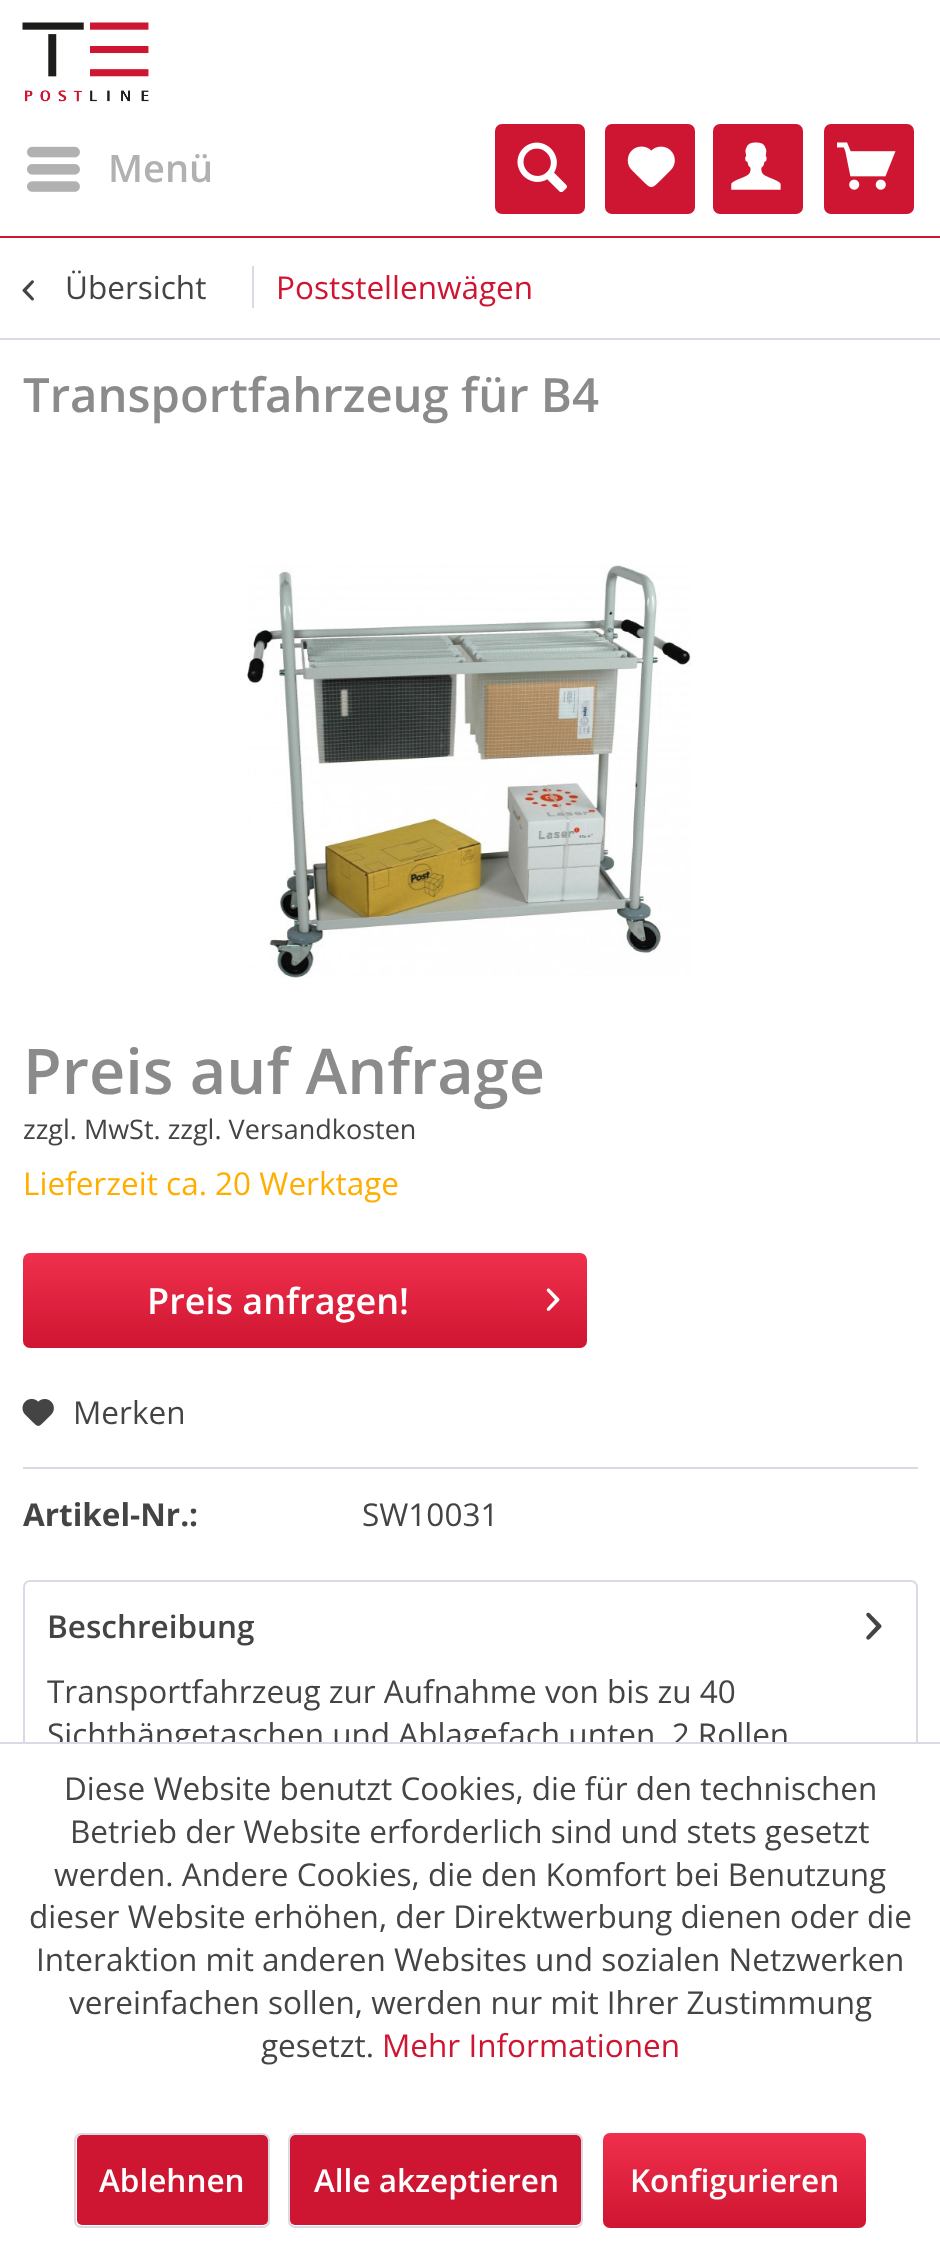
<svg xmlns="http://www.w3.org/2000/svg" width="940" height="2249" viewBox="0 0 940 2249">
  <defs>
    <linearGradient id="g1" gradientUnits="userSpaceOnUse" x1="305" y1="1253" x2="305" y2="1348"><stop offset="0" stop-color="#f0304d"/><stop offset="1" stop-color="#ce1531"/></linearGradient>
    <linearGradient id="g2" gradientUnits="userSpaceOnUse" x1="735" y1="2133" x2="735" y2="2228"><stop offset="0" stop-color="#f0304d"/><stop offset="1" stop-color="#ce1531"/></linearGradient>
  </defs>
  <rect width="100%" height="100%" fill="#fff"/>
  <path d="M0 236h940v2H0z" fill="#ce1531"/>
  <image x="22" y="22" width="127" height="80" href="img/1.png"/>
  <image x="27" y="146" width="53" height="46" href="img/2.png"/>
  <rect x="495" y="124" width="90" height="90" rx="7" fill="#ce1531"/>
  <image x="517" y="142" width="50" height="51" href="img/3.png"/>
  <rect x="605" y="124" width="90" height="90" rx="7" fill="#ce1531"/>
  <image x="627" y="146" width="48" height="41" href="img/4.png"/>
  <rect x="713" y="124" width="90" height="90" rx="7" fill="#ce1531"/>
  <image x="731" y="142" width="50" height="48" href="img/5.png"/>
  <rect x="824" y="124" width="90" height="90" rx="7" fill="#ce1531"/>
  <image x="837" y="142" width="59" height="48" href="img/6.png"/>
  <path d="M0 338h940v2H0z" fill="#dadae5"/>
  <image x="22" y="280" width="12" height="21" href="img/7.png"/>
  <path d="M252 266h2v42H252z" fill="#dadae5"/>
  <image x="247" y="564" width="445" height="414" href="img/8.png"/>
  <rect x="23" y="1253" width="564" height="95" rx="7" fill="url(#g1)"/>
  <image x="546" y="1288" width="14" height="23" href="img/9.png"/>
  <path d="M23 1467h895v2H23z" fill="#dadae5"/>
  <image x="22" y="1398" width="32" height="28" href="img/10.png"/>
  <rect x="24" y="1581" width="893" height="241" rx="6" fill="none" stroke="#dadae5" stroke-width="2"/>
  <image x="866" y="1612" width="16" height="28" href="img/11.png"/>
  <rect x="77" y="2135" width="191" height="90" rx="5" fill="#ce1531"/>
  <rect x="75" y="2134" width="194" height="93" rx="6" fill="none" stroke="#dadae5" stroke-width="2"/>
  <rect x="290" y="2135" width="291" height="90" rx="5" fill="#ce1531"/>
  <rect x="289" y="2134" width="293" height="93" rx="6" fill="none" stroke="#dadae5" stroke-width="2"/>
  <rect x="603" y="2133" width="263" height="95" rx="7" fill="url(#g2)"/>
  <text x="108" y="182" font-family="Open Sans" font-size="38" font-weight="600" fill="#b1b1b1">Menü</text>
  <text x="65" y="299" font-family="Open Sans" font-size="31.5" fill="#444">Übersicht</text>
  <text x="276" y="299" font-family="Open Sans" font-size="31.5" fill="#ce1531">Poststellenwägen</text>
  <text x="23" y="412" font-family="Open Sans" font-size="47.25" font-weight="600" fill="#8b8b8b">Transportfahrzeug für B4</text>
  <text x="23" y="1094" font-family="Open Sans" font-size="63" font-weight="600" fill="#8b8b8b">Preis auf Anfrage</text>
  <text x="23" y="1139" font-family="Open Sans" font-size="27" fill="#444">zzgl. MwSt. zzgl. Versandkosten</text>
  <text x="23" y="1195" font-family="Open Sans" font-size="31.5" fill="#ffae00">Lieferzeit ca. 20 Werktage</text>
  <text x="147" y="1314" font-family="Open Sans" font-size="36" font-weight="600" fill="#fff">Preis anfragen!</text>
  <text x="73" y="1424" font-family="Open Sans" font-size="31.5" fill="#444">Merken</text>
  <text x="23" y="1526" font-family="Open Sans" font-size="31.5" font-weight="bold" fill="#444">Artikel-Nr.:</text>
  <text x="362" y="1526" font-family="Open Sans" font-size="31.5" fill="#444">SW10031</text>
  <text x="47" y="1638" font-family="Open Sans" font-size="31.5" font-weight="600" fill="#444">Beschreibung</text>
  <g font-family="Open Sans" font-size="31.5" fill="#444">
    <text x="47" y="1703">Transportfahrzeug zur Aufnahme von bis zu 40</text>
    <text x="47" y="1746">Sichthängetaschen und Ablagefach unten. 2 Rollen</text>
  </g>
  <path d="M23 1744h895v79H23z" fill="#fff"/>
  <path d="M0 1742h940v2H0z" fill="#dadae5"/>
  <g font-family="Open Sans" font-size="31.5" fill="#444">
    <text x="64" y="1800">Diese Website benutzt Cookies, die für den technischen</text>
    <text x="70" y="1843">Betrieb der Website erforderlich sind und stets gesetzt</text>
    <text x="54" y="1886">werden. Andere Cookies, die den Komfort bei Benutzung</text>
    <text x="29" y="1928">dieser Website erhöhen, der Direktwerbung dienen oder die</text>
    <text x="36" y="1971">Interaktion mit anderen Websites und sozialen Netzwerken</text>
    <text x="69" y="2014">vereinfachen sollen, werden nur mit Ihrer Zustimmung</text>
    <text x="261" y="2057">gesetzt.</text>
  </g>
  <text x="382" y="2057" font-family="Open Sans" font-size="31.5" fill="#ce1531">Mehr Informationen</text>
  <g font-family="Open Sans" font-size="31.5" font-weight="600" fill="#fff">
    <text x="99" y="2192">Ablehnen</text>
    <text x="314" y="2192">Alle akzeptieren</text>
    <text x="630" y="2192">Konfigurieren</text>
  </g>
</svg>
